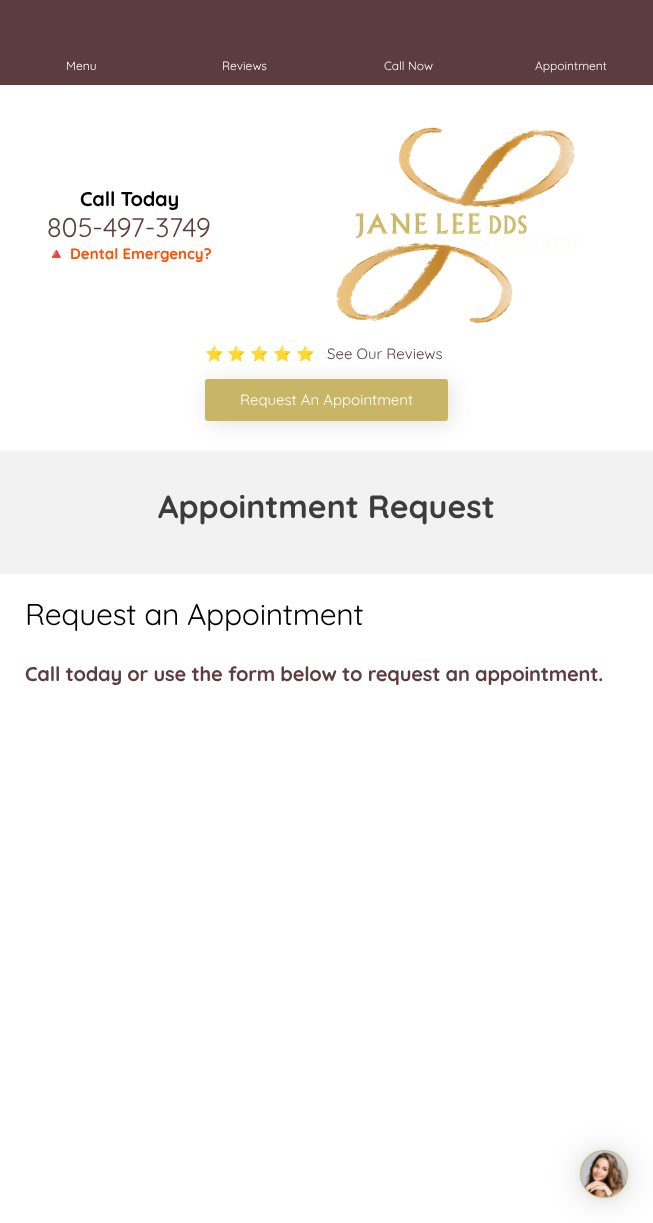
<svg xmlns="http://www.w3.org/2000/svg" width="653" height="1223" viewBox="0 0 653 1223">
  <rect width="100%" height="100%" fill="#fff"/>
  <path d="M0 0h653v85H0z" fill="#5d3c3f"/>
  <image x="336" y="127" width="243" height="197" href="img/1.png"/>
  <rect x="208" y="382" width="243" height="42" rx="3" fill="#33333324" filter="blur(10px)"/>
  <rect x="205" y="379" width="243" height="42" rx="3" fill="#c8b566"/>
  <path d="M0 451h653v123H0z" fill="#f2f2f2"/>
  <rect x="580" y="1152" width="48" height="48" rx="24" fill="#00000029" filter="blur(16px)"/>
  <rect x="580" y="1151" width="48" height="48" rx="24" fill="#0000000f" filter="blur(3px)"/>
  <circle cx="604" cy="1174" r="24" fill="#c8b566"/>
  <image x="581" y="1151" width="46" height="46" href="img/2.png"/>
  <g font-family="Quicksand" font-size="12" fill="#fff">
    <text x="66" y="70">Menu</text>
    <text x="222" y="70">Reviews</text>
    <text x="384" y="70">Call Now</text>
    <text x="535" y="70">Appointment</text>
  </g>
  <text x="80" y="206" font-family="Quicksand" font-size="20" font-weight="bold" letter-spacing="-0.2" fill="#000">Call Today</text>
  <text x="47" y="237" font-family="Quicksand" font-size="27" fill="#5d3c3f">805-497-3749</text>
  <text x="47" y="259" font-family="Noto Color Emoji" font-size="15" font-weight="bold" fill="#ff4f00">🔺</text>
  <text x="70" y="259" font-family="Quicksand" font-size="15" font-weight="bold" fill="#ff4f00">Dental Emergency?</text>
  <g font-family="Noto Color Emoji" font-size="15" fill="#5d3c3f">
    <text x="205" y="359">⭐</text>
    <text x="227" y="359">⭐</text>
    <text x="250" y="359">⭐</text>
    <text x="273" y="359">⭐</text>
    <text x="296" y="359">⭐</text>
  </g>
  <text x="327" y="359" font-family="Quicksand" font-size="15" fill="#5d3c3f">See Our Reviews</text>
  <text x="240" y="405" font-family="Quicksand" font-size="15" fill="#fff">Request An Appointment</text>
  <text x="158" y="518" font-family="Quicksand" font-size="32" font-weight="bold" fill="#3c3c3c">Appointment Request</text>
  <text x="25" y="625" font-family="Quicksand" font-size="30" letter-spacing="-0.3" fill="#000">Request an Appointment</text>
  <text x="25" y="681" font-family="Quicksand" font-size="20" font-weight="bold" letter-spacing="-0.2" fill="#5d3c3f">Call today or use the form below to request an appointment.</text>
</svg>
